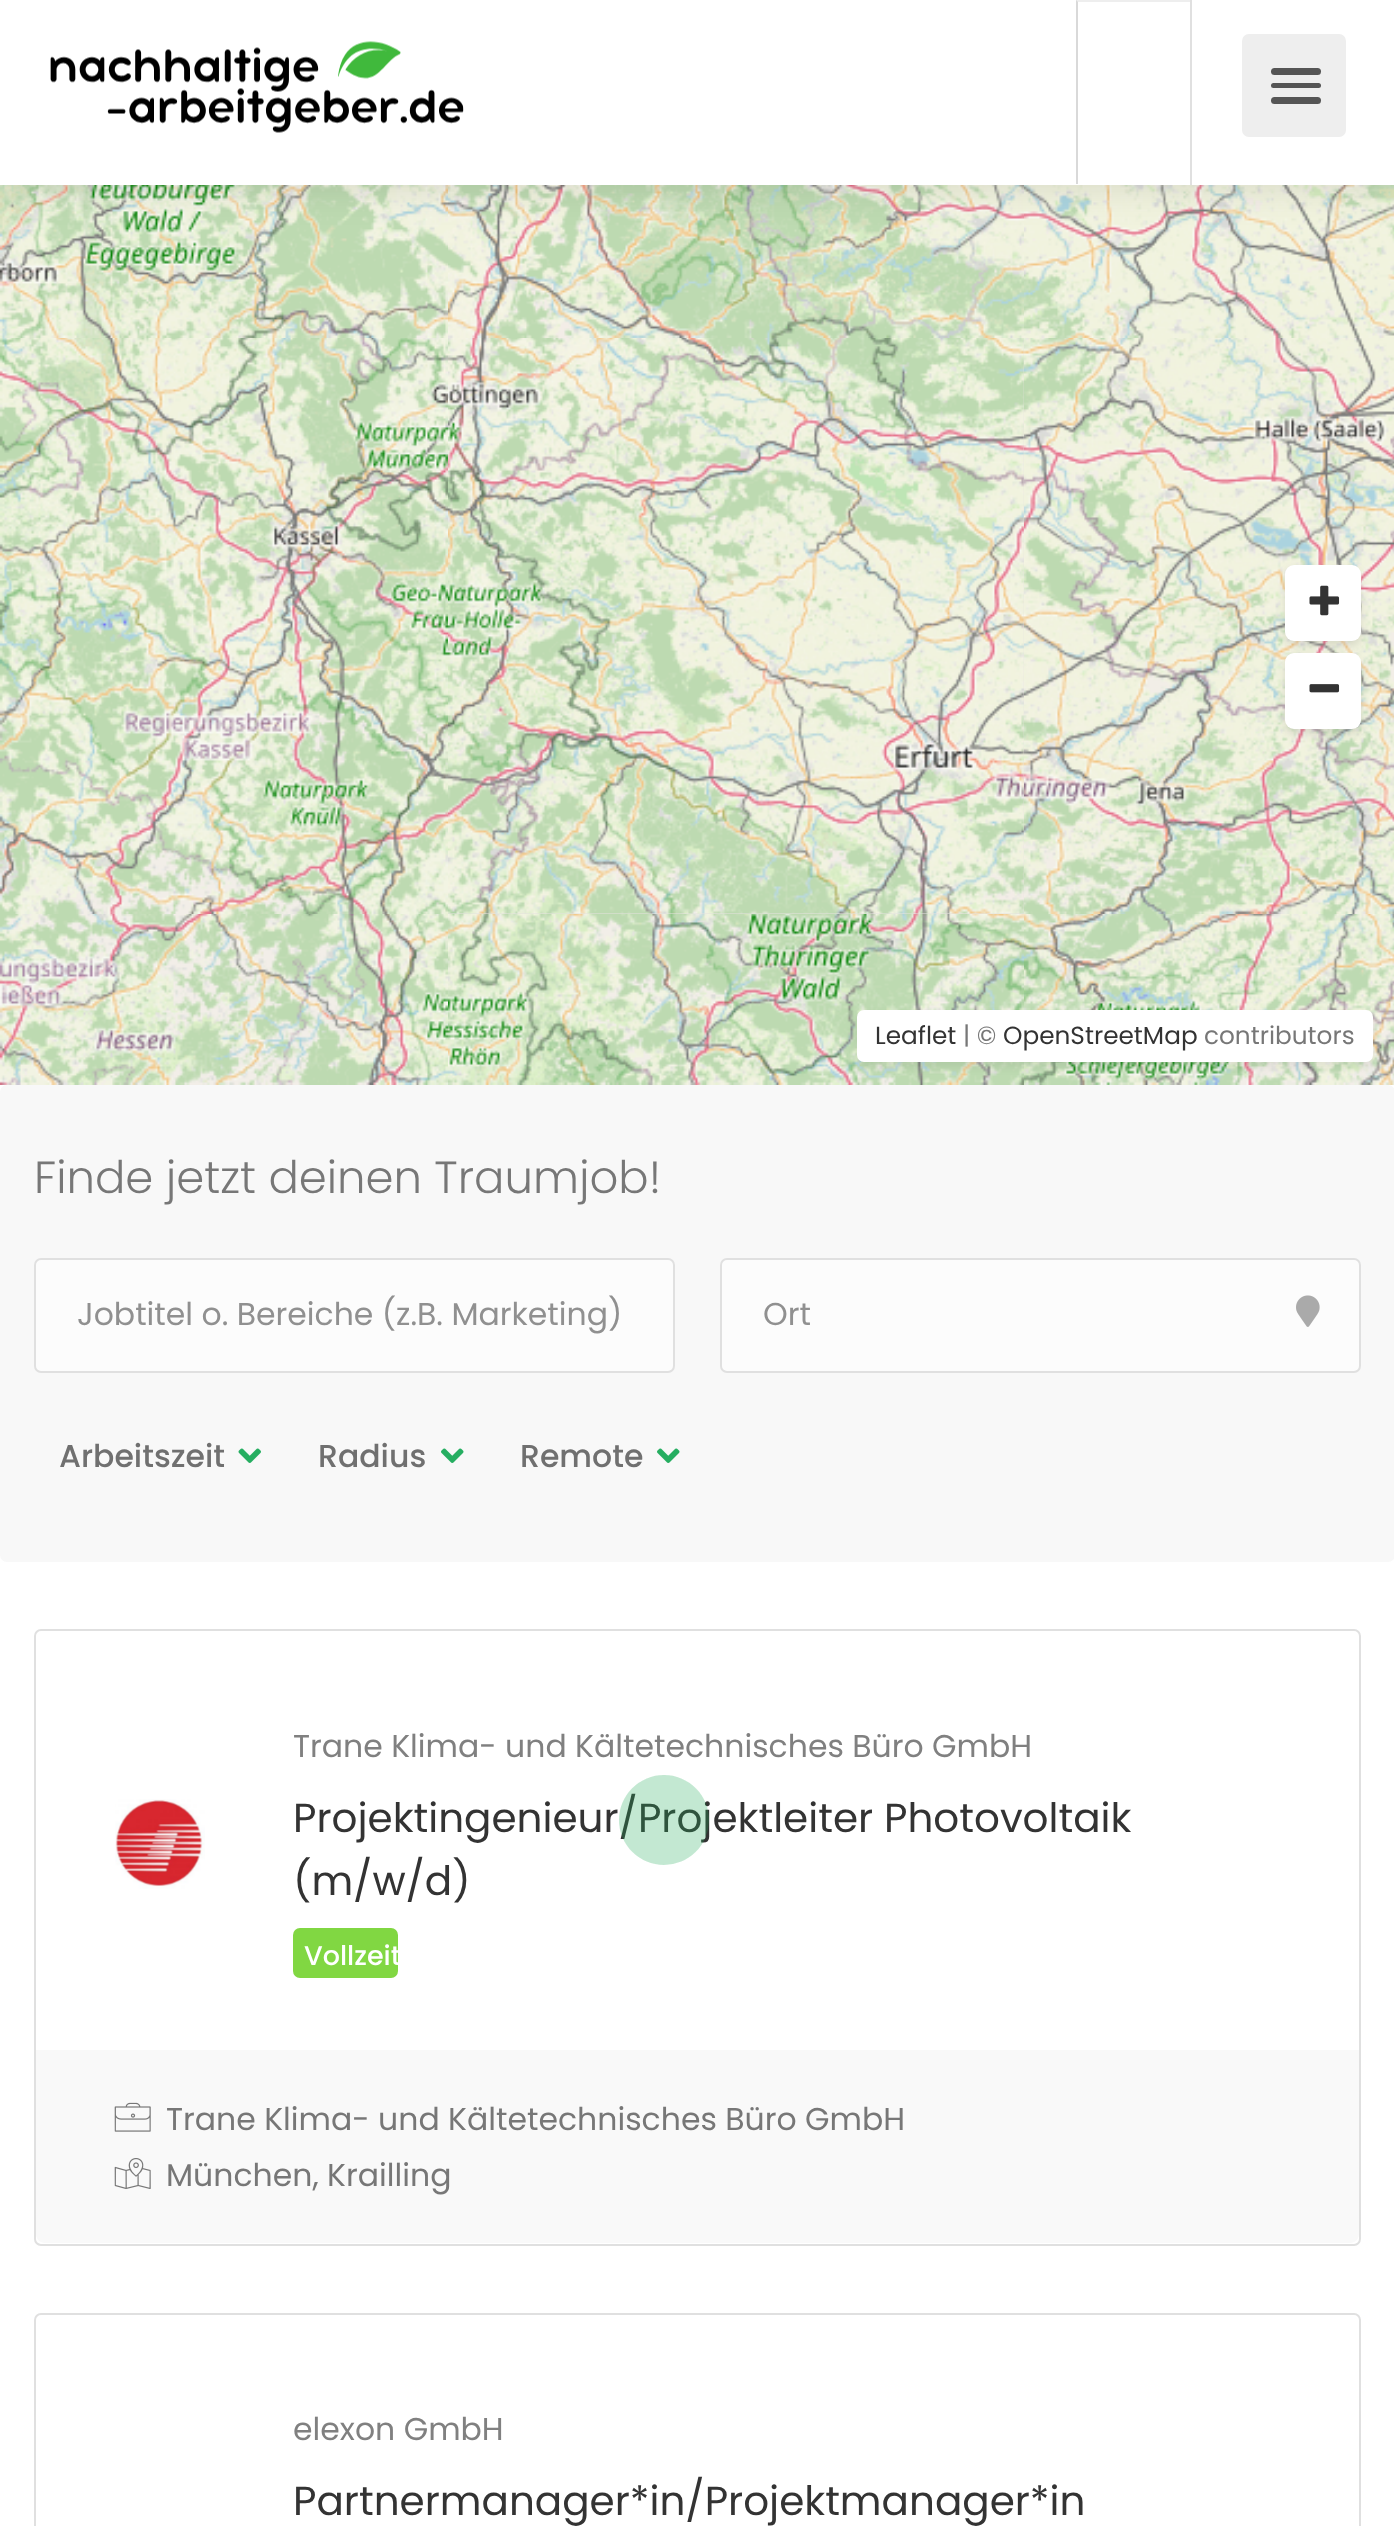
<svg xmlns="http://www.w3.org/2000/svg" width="1394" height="2526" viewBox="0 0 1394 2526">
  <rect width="100%" height="100%" fill="#fff"/>
  <image x="0" y="185" width="448" height="153" href="img/2.png"/>
  <image x="448" y="185" width="576" height="153" href="img/3.png"/>
  <image x="1024" y="185" width="370" height="153" href="img/4.png"/>
  <path d="M0 0h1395v185H0z" fill="#0000001f" filter="blur(20px)"/>
  <path d="M0 0h1394v185H0z" fill="#fff"/>
  <image x="50" y="41" width="414" height="92" href="img/1.png"/>
  <path d="M1076 0H1192L1190 2H1078Z" fill="#eee"/>
  <path d="M1190 0h2v185H1190z" fill="#e0e0e0"/>
  <path d="M1076 184V0L1078 2V184Z" fill="#00000026"/>
  <rect x="1242" y="34" width="104" height="103" rx="7" fill="#eee"/>
  <rect x="1271" y="97" width="50" height="7" rx="3.5" fill="#555"/>
  <rect x="1271" y="68" width="50" height="7" rx="3.5" fill="#555"/>
  <rect x="1271" y="83" width="50" height="5" rx="2.5" fill="#555"/>
  <path d="M448 338h576v576H448z" fill="#e5e3df"/>
  <image x="0" y="338" width="448" height="576" href="img/5.png"/>
  <image x="448" y="338" width="576" height="576" href="img/6.png"/>
  <image x="1024" y="338" width="370" height="576" href="img/7.png"/>
  <image x="0" y="914" width="448" height="171" href="img/8.png"/>
  <image x="448" y="914" width="576" height="171" href="img/9.png"/>
  <image x="1024" y="914" width="370" height="171" href="img/10.png"/>
  <rect x="1285" y="569" width="76" height="77" rx="9" fill="#0000001a" filter="blur(4.5px)"/>
  <rect x="1285" y="565" width="76" height="76" rx="9" fill="#fff"/>
  <image x="1309" y="585" width="31" height="31" href="img/11.png"/>
  <rect x="1285" y="657" width="76" height="77" rx="9" fill="#0000001a" filter="blur(4.5px)"/>
  <rect x="1285" y="653" width="76" height="76" rx="9" fill="#fff"/>
  <image x="1309" y="684" width="31" height="9" href="img/12.png"/>
  <rect x="857" y="1015" width="516" height="52" rx="7" fill="#00000012" filter="blur(4.5px)"/>
  <rect x="857" y="1010" width="516" height="52" rx="7" fill="#fff"/>
  <rect y="1085" width="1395" height="477" rx="7" fill="#f8f8f8"/>
  <rect x="35" y="1259" width="639" height="113" rx="6" fill="#fcfcfc" stroke="#e0e0e0" stroke-width="2"/>
  <rect x="721" y="1259" width="639" height="113" rx="6" fill="#fcfcfc" stroke="#e0e0e0" stroke-width="2"/>
  <image x="1296" y="1295" width="24" height="32" href="img/13.png"/>
  <image x="238" y="1448" width="23" height="15" href="img/14.png"/>
  <image x="441" y="1448" width="23" height="15" href="img/15.png"/>
  <image x="657" y="1448" width="23" height="15" href="img/15.png"/>
  <rect x="35" y="1630" width="1325" height="615" rx="6" fill="none" stroke="#e0e0e0" stroke-width="2"/>
  <image x="115" y="1799" width="90" height="90" href="img/16.png"/>
  <rect x="293" y="1928" width="105" height="50" rx="7" fill="#81d742"/>
  <path d="M36 2050H1359V2234C1359 2239 1355 2243 1350 2243H45C40 2243 36 2239 36 2234Z" fill="#f9f9f9"/>
  <image x="114" y="2102" width="37" height="30" href="img/17.png"/>
  <image x="114" y="2158" width="37" height="31" href="img/18.png"/>
  <rect x="35" y="2314" width="1325" height="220" rx="6" fill="none" stroke="#e0e0e0" stroke-width="2"/>
  <text x="875" y="1044" font-family="Poppins" font-size="24.75" fill="#333">Leaflet</text>
  <text x="963" y="1044" font-family="Poppins" font-size="24.75" fill="#777">| ©</text>
  <text x="1003" y="1044" font-family="Poppins" font-size="24.75" fill="#333">OpenStreetMap</text>
  <text x="1204" y="1044" font-family="Poppins" font-size="24.75" fill="#777">contributors</text>
  <text x="34" y="1193" font-family="Poppins" font-size="45" font-weight="300" fill="#777">Finde jetzt deinen Traumjob!</text>
  <g font-family="Poppins" font-size="31.5" fill="#909090">
    <text x="77" y="1325">Jobtitel o. Bereiche (z.B. Marketing)</text>
    <text x="763" y="1325">Ort</text>
  </g>
  <g font-family="Poppins" font-size="31.5" font-weight="500" fill="#707070">
    <text x="59" y="1467">Arbeitszeit</text>
    <text x="318" y="1467">Radius</text>
    <text x="520" y="1467">Remote</text>
  </g>
  <text x="293" y="1757" font-family="Poppins" font-size="31.5" fill="#808080">Trane Klima- und Kältetechnisches Büro GmbH</text>
  <g font-family="Poppins" font-size="40.5" fill="#333">
    <text x="293" y="1832">Projektingenieur/Projektleiter Photovoltaik</text>
    <text x="293" y="1895">(m/w/d)</text>
  </g>
  <text x="304" y="1965" font-family="Poppins" font-size="27" font-weight="500" fill="#fff">Vollzeit</text>
  <g font-family="Poppins" font-size="31.5" fill="#777">
    <text x="166" y="2130">Trane Klima- und Kältetechnisches Büro GmbH</text>
    <text x="166" y="2186">München, Krailling</text>
  </g>
  <text x="293" y="2440" font-family="Poppins" font-size="31.5" fill="#808080">elexon GmbH</text>
  <text x="293" y="2515" font-family="Poppins" font-size="40.5" fill="#333">Partnermanager*in/Projektmanager*in</text>
  <circle cx="664" cy="1820" r="45" fill="#26ae6126"/>
  <circle cx="664" cy="1820" r="45" fill="#26ae6126"/>
</svg>
